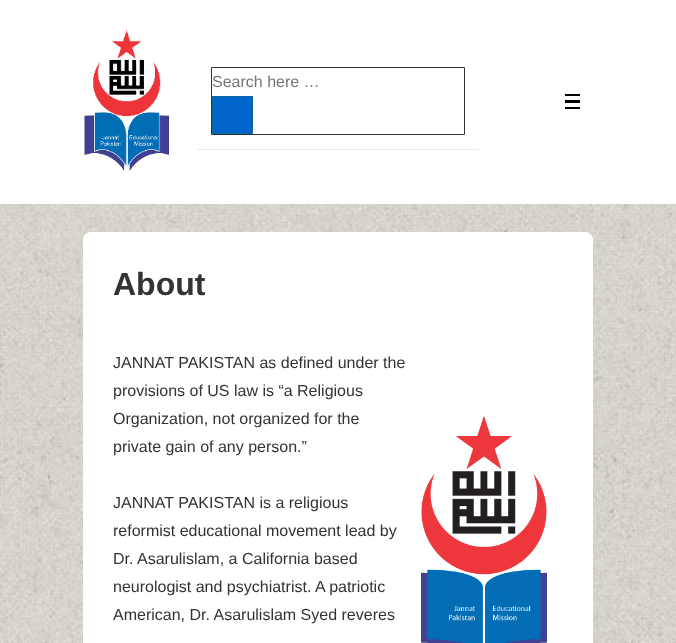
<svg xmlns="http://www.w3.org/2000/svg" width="676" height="643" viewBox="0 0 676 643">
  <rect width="100%" height="100%" fill="#fff"/>
  <image x="0" y="204" width="676" height="439" href="img/1.png"/>
  <image x="84" y="30" width="85" height="141" href="img/2.png"/>
  <path d="M197 149h282v1H197z" fill="#eaeaea"/>
  <path d="M211.5 67.5h253v67H211.5z" fill="none" stroke="#333"/>
  <path d="M212.5 96.5h40v37H212.5z" fill="#06c" stroke="#10659c"/>
  <path d="M565 94h15v2H565z" fill="#000"/>
  <path d="M565 100h15v3H565z" fill="#000"/>
  <path d="M565 107h15v2H565z" fill="#000"/>
  <rect x="83" y="232" width="510" height="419" rx="8" fill="#fff"/>
  <image x="421" y="416" width="126" height="227" href="img/3.png"/>
  <text x="212" y="87" font-family="Liberation Sans" font-size="16" fill="#757575">Search here …</text>
  <text x="113" y="295" font-family="Liberation Sans" font-size="32" font-weight="bold" fill="#333">About</text>
  <g font-family="Liberation Sans" font-size="16" fill="#333">
    <text x="113" y="368">JANNAT PAKISTAN as defined under the</text>
    <text x="113" y="396">provisions of US law is “a Religious</text>
    <text x="113" y="424">Organization, not organized for the</text>
    <text x="113" y="452">private gain of any person.”</text>
    <text x="113" y="508">JANNAT PAKISTAN is a religious</text>
    <text x="113" y="536">reformist educational movement lead by</text>
    <text x="113" y="564">Dr. Asarulislam, a California based</text>
    <text x="113" y="592">neurologist and psychiatrist. A patriotic</text>
    <text x="113" y="620">American, Dr. Asarulislam Syed reveres</text>
  </g>
</svg>
